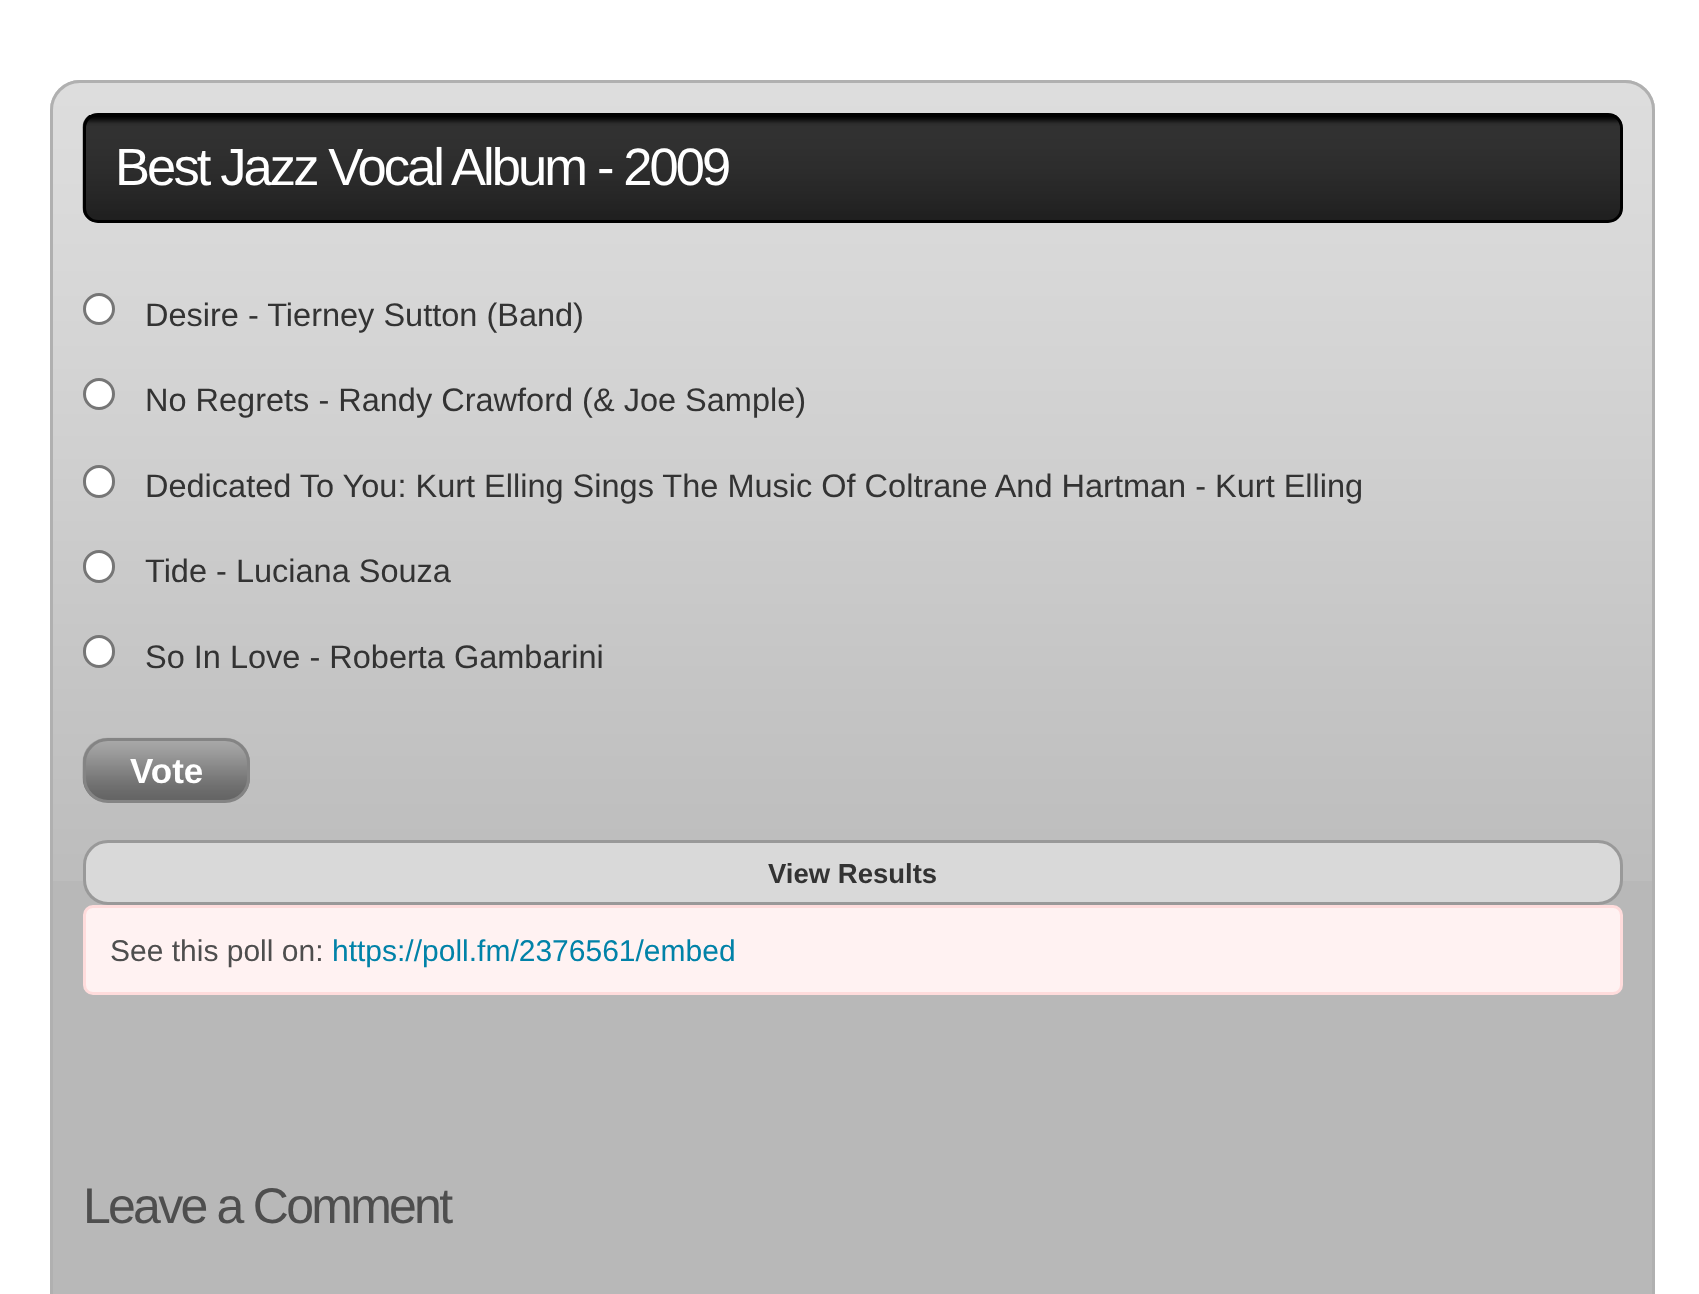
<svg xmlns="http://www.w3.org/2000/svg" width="1699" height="1294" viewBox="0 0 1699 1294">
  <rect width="100%" height="100%" fill="#fff"/>
  <rect x="50" y="80" width="1605" height="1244" rx="30" fill="#b8b8b8"/>
  <image x="50" y="82" width="1605" height="799" href="img/1.png"/>
  <rect x="51.5" y="81.5" width="1602" height="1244" rx="28.5" fill="none" stroke="#b0b0b0" stroke-width="3"/>
  <image x="82" y="115" width="1541" height="108" href="img/2.png"/>
  <rect x="84.5" y="114.5" width="1537" height="107" rx="13.5" fill="none" stroke="#000" stroke-width="3"/>
  <circle cx="99" cy="309" r="14.5" fill="#fff" stroke="#767676" stroke-width="3"/>
  <circle cx="99" cy="394" r="14.5" fill="#fff" stroke="#767676" stroke-width="3"/>
  <rect x="84.5" y="466.5" width="29" height="30" rx="14.5" fill="#fff" stroke="#767676" stroke-width="3"/>
  <rect x="84.5" y="551.5" width="29" height="30" rx="14.5" fill="#fff" stroke="#767676" stroke-width="3"/>
  <rect x="84.5" y="636.5" width="29" height="30" rx="14.5" fill="#fff" stroke="#767676" stroke-width="3"/>
  <image x="82" y="737" width="168" height="63" href="img/3.png"/>
  <rect x="84.5" y="739.5" width="164" height="62" rx="23.5" fill="none" stroke="#848484" stroke-width="3"/>
  <rect x="84.5" y="841.5" width="1537" height="62" rx="23.5" fill="#d9d9d9" stroke="#999" stroke-width="3"/>
  <rect x="84.5" y="906.5" width="1537" height="87" rx="8.5" fill="#fff2f2" stroke="#ffdcdc" stroke-width="3"/>
  <text x="115" y="185" font-family="Liberation Sans" font-size="52.5" letter-spacing="-2.9" fill="#fff">Best Jazz Vocal Album - 2009</text>
  <g font-family="Liberation Sans" font-size="32.5" fill="#333">
    <text x="145" y="326">Desire - Tierney Sutton (Band)</text>
    <text x="145" y="411">No Regrets - Randy Crawford (&amp; Joe Sample)</text>
    <text x="145" y="497">Dedicated To You: Kurt Elling Sings The Music Of Coltrane And Hartman - Kurt Elling</text>
    <text x="145" y="582">Tide - Luciana Souza</text>
    <text x="145" y="668">So In Love - Roberta Gambarini</text>
  </g>
  <text x="130" y="783" font-family="Liberation Sans" font-size="35" font-weight="bold" fill="#fff">Vote</text>
  <text x="768" y="883" font-family="Liberation Sans" font-size="27.5" font-weight="bold" fill="#333">View Results</text>
  <text x="110" y="961" font-family="Liberation Sans" font-size="30" fill="#4e4e4e">See this poll on:</text>
  <text x="332" y="961" font-family="Liberation Sans" font-size="30" fill="#0182a8">https://poll.fm/2376561/embed</text>
  <text x="83" y="1223" font-family="Liberation Sans" font-size="50" letter-spacing="-2.75" fill="#4e4e4e">Leave a Comment</text>
</svg>
